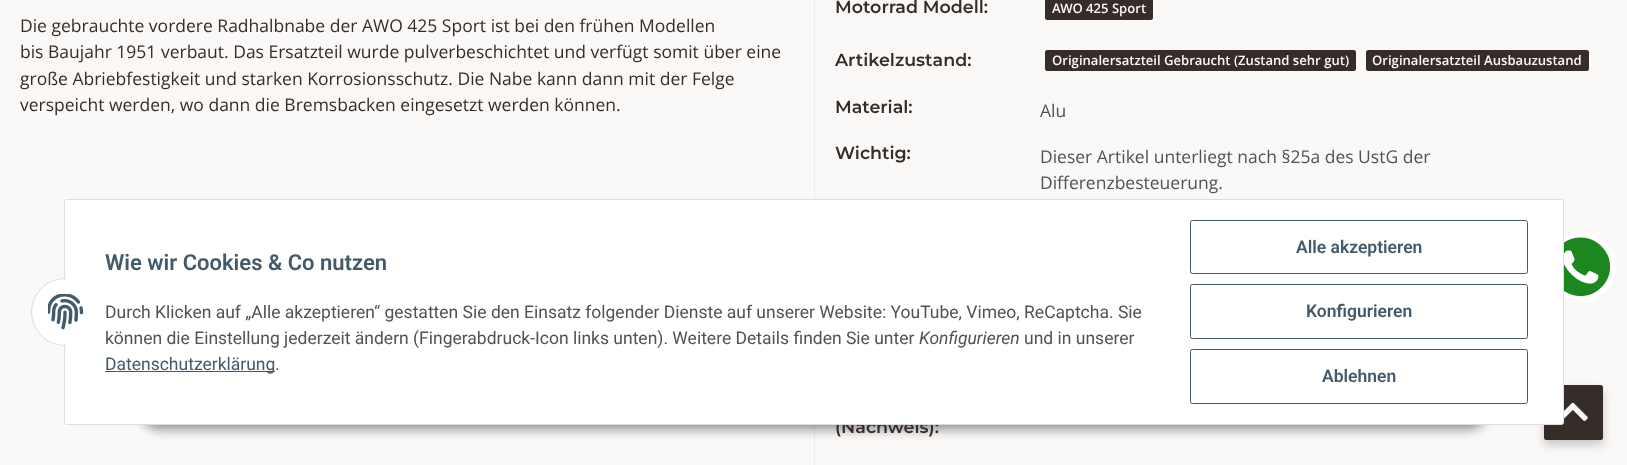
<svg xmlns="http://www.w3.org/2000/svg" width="1627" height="465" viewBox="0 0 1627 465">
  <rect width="100%" height="100%" fill="#fbf9f8"/>
  <path d="M814 0h1v465H814z" fill="#ebebeb"/>
  <rect x="1045" y="-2" width="108" height="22" rx="2.5" fill="#362d28"/>
  <rect x="1045" y="50" width="311" height="21" rx="2.5" fill="#362d28"/>
  <rect x="1366" y="50" width="223" height="21" rx="2.5" fill="#362d28"/>
  <rect x="140" y="389" width="1348" height="40" rx="20" fill="#00000073" filter="blur(6px)"/>
  <rect x="1546" y="233" width="69" height="68" rx="34" fill="#1c871e"/>
  <image x="1564" y="232" width="52" height="70" href="img/2.png"/>
  <rect x="1544" y="390" width="59" height="55" rx="2.5" fill="#00000033" filter="blur(5px)"/>
  <rect x="1544" y="385" width="59" height="55" rx="2.5" fill="#362d28"/>
  <image x="1564" y="402" width="24" height="19" href="img/3.png"/>
  <g font-family="Open Sans" font-size="17.5" fill="#362d28">
    <text x="20" y="32">Die gebrauchte vordere Radhalbnabe der AWO 425 Sport ist bei den frühen Modellen</text>
    <text x="20" y="58">bis Baujahr 1951 verbaut. Das Ersatzteil wurde pulverbeschichtet und verfügt somit über eine</text>
    <text x="20" y="85">große Abriebfestigkeit und starken Korrosionsschutz. Die Nabe kann dann mit der Felge</text>
    <text x="20" y="111">verspeicht werden, wo dann die Bremsbacken eingesetzt werden können.</text>
  </g>
  <text x="835" y="13" font-family="Montserrat" font-size="17.5" font-weight="600" fill="#362d28">Motorrad Modell:</text>
  <text x="1052" y="13" font-family="Open Sans" font-size="13.1" font-weight="600" fill="#fbf9f8">AWO 425 Sport</text>
  <text x="835" y="66" font-family="Montserrat" font-size="17.5" font-weight="600" fill="#362d28">Artikelzustand:</text>
  <g font-family="Open Sans" font-size="13.1" font-weight="600" fill="#fbf9f8">
    <text x="1052" y="65">Originalersatzteil Gebraucht (Zustand sehr gut)</text>
    <text x="1372" y="65">Originalersatzteil Ausbauzustand</text>
  </g>
  <text x="835" y="113" font-family="Montserrat" font-size="17.5" font-weight="600" fill="#362d28">Material:</text>
  <text x="1040" y="117" font-family="Open Sans" font-size="17.5" fill="#525252">Alu</text>
  <text x="835" y="159" font-family="Montserrat" font-size="17.5" font-weight="600" fill="#362d28">Wichtig:</text>
  <g font-family="Open Sans" font-size="17.5" fill="#525252">
    <text x="1040" y="163">Dieser Artikel unterliegt nach §25a des UstG der</text>
    <text x="1040" y="189">Differenzbesteuerung.</text>
  </g>
  <text x="835" y="433" font-family="Montserrat" font-size="17.5" font-weight="600" fill="#362d28">(Nachweis):</text>
  <rect x="64.5" y="199.5" width="1499" height="225" rx="2" fill="#fff" stroke="#ddd"/>
  <rect x="31.5" y="278.5" width="68" height="67" rx="33.5" fill="#fff" stroke="#ddd"/>
  <path d="M66 278h34v68H66z" fill="#fff"/>
  <image x="48" y="294" width="36" height="36" href="img/1.png"/>
  <text x="105" y="270" font-family="Roboto" font-size="22" font-weight="600" fill="#435a6b">Wie wir Cookies &amp; Co nutzen</text>
  <g font-family="Roboto" font-size="17.5" fill="#525252">
    <text x="105" y="318">Durch Klicken auf „Alle akzeptieren“ gestatten Sie den Einsatz folgender Dienste auf unserer Website: YouTube, Vimeo, ReCaptcha. Sie</text>
    <text x="105" y="344">können die Einstellung jederzeit ändern (Fingerabdruck-Icon links unten). Weitere Details finden Sie unter</text>
  </g>
  <text x="919" y="344" font-family="Roboto" font-size="17.5" font-style="italic" fill="#525252">Konfigurieren</text>
  <text x="1024" y="344" font-family="Roboto" font-size="17.5" fill="#525252">und in unserer</text>
  <path d="M105 371h170v1H105z" fill="#435a6b"/>
  <text x="105" y="370" font-family="Roboto" font-size="17.5" fill="#435a6b">Datenschutzerklärung</text>
  <text x="275" y="370" font-family="Roboto" font-size="17.5" fill="#525252">.</text>
  <rect x="1190.5" y="220.5" width="337" height="53" rx="2" fill="none" stroke="#435a6b"/>
  <text x="1296" y="253" font-family="Roboto" font-size="17.5" font-weight="600" fill="#435a6b">Alle akzeptieren</text>
  <rect x="1190.5" y="284.5" width="337" height="54" rx="2" fill="none" stroke="#435a6b"/>
  <text x="1306" y="317" font-family="Roboto" font-size="17.5" font-weight="600" fill="#435a6b">Konfigurieren</text>
  <rect x="1190.5" y="349.5" width="337" height="54" rx="2" fill="none" stroke="#435a6b"/>
  <text x="1322" y="382" font-family="Roboto" font-size="17.5" font-weight="600" fill="#435a6b">Ablehnen</text>
</svg>
